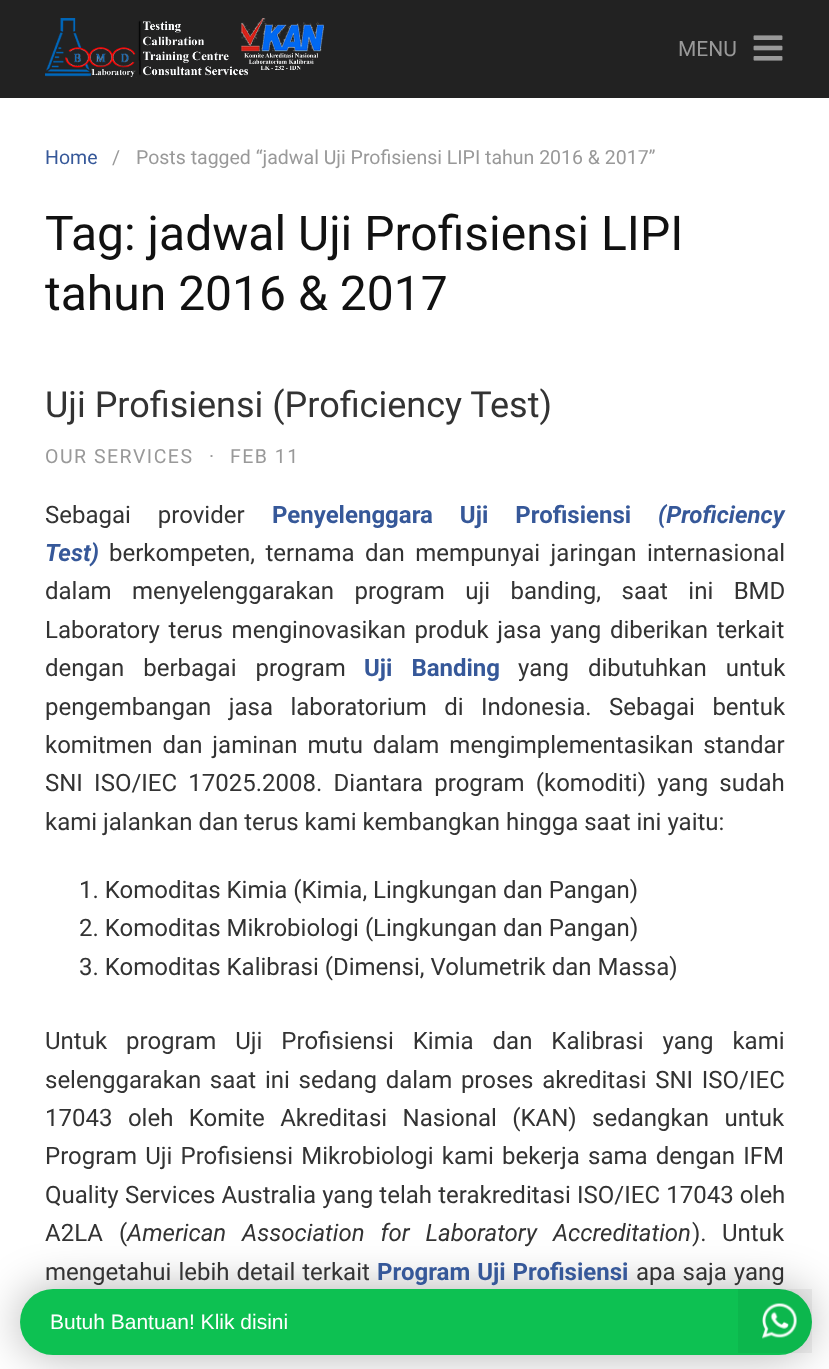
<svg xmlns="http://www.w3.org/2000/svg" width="829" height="1369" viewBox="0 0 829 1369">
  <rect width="100%" height="100%" fill="#fff"/>
  <path d="M0 0h829v98H0z" fill="#222"/>
  <image x="45" y="18" width="279" height="60" href="img/1.png"/>
  <image x="753" y="35" width="30" height="26" href="img/2.png"/>
  <rect x="20" y="1289" width="792" height="66" rx="33" fill="#0000004d" filter="blur(22.5px)"/>
  <rect x="20" y="1289" width="792" height="66" rx="33" fill="#0dc152"/>
  <path d="M738 1289h74v64H738z" fill="#0000000d"/>
  <image x="762" y="1303" width="35" height="36" href="img/3.png"/>
  <text x="678" y="56" font-family="Roboto" font-size="21" fill="#999">MENU</text>
  <text x="45" y="164" font-family="Roboto" font-size="19.5" fill="#365899">Home</text>
  <g font-family="Roboto" font-size="19.5" fill="#999">
    <text x="112" y="164">/</text>
    <text x="136" y="164">Posts tagged “jadwal Uji Profisiensi LIPI tahun 2016 &amp; 2017”</text>
  </g>
  <g font-family="Roboto" font-size="48" fill="#111">
    <text x="45" y="250">Tag: jadwal Uji Profisiensi LIPI</text>
    <text x="45" y="310">tahun 2016 &amp; 2017</text>
  </g>
  <text x="45" y="417" font-family="Roboto" font-size="36" fill="#333">Uji Profisiensi (Proficiency Test)</text>
  <g font-family="Roboto" font-size="19.5" letter-spacing="1.5" fill="#999">
    <text x="45" y="463">OUR SERVICES</text>
    <text x="209" y="463">·</text>
    <text x="230" y="463">FEB 11</text>
  </g>
  <text x="45" y="523" word-spacing="21" font-family="Roboto" font-size="24" fill="#333">Sebagai provider</text>
  <text x="272" y="523" word-spacing="21" font-family="Roboto" font-size="24" font-weight="bold" fill="#365899">Penyelenggara Uji Profisiensi</text>
  <g font-family="Roboto" font-size="24" font-weight="bold" font-style="italic" fill="#365899">
    <text x="658" y="523">(Proficiency</text>
    <text x="45" y="561">Test)</text>
  </g>
  <g font-family="Roboto" font-size="24" fill="#333">
    <text x="109" y="561" word-spacing="4.5">berkompeten, ternama dan mempunyai jaringan internasional</text>
    <text x="45" y="599" word-spacing="14.5">dalam menyelenggarakan program uji banding, saat ini BMD</text>
    <text x="45" y="638" word-spacing="2.75">Laboratory terus menginovasikan produk jasa yang diberikan terkait</text>
    <text x="45" y="676" word-spacing="13">dengan berbagai program</text>
  </g>
  <text x="364" y="676" word-spacing="13" font-family="Roboto" font-size="24" font-weight="bold" fill="#365899">Uji Banding</text>
  <g font-family="Roboto" font-size="24" fill="#333">
    <text x="518" y="676" word-spacing="13">yang dibutuhkan untuk</text>
    <text x="45" y="715" word-spacing="11.5">pengembangan jasa laboratorium di Indonesia. Sebagai bentuk</text>
    <text x="45" y="753" word-spacing="4">komitmen dan jaminan mutu dalam mengimplementasikan standar</text>
    <text x="45" y="791" word-spacing="5.25">SNI ISO/IEC 17025.2008. Diantara program (komoditi) yang sudah</text>
    <text x="45" y="830">kami jalankan dan terus kami kembangkan hingga saat ini yaitu:</text>
    <text x="79" y="898">1. Komoditas Kimia (Kimia, Lingkungan dan Pangan)</text>
    <text x="79" y="936">2. Komoditas Mikrobiologi (Lingkungan dan Pangan)</text>
    <text x="79" y="975">3. Komoditas Kalibrasi (Dimensi, Volumetrik dan Massa)</text>
    <text x="45" y="1049" word-spacing="13">Untuk program Uji Profisiensi Kimia dan Kalibrasi yang kami</text>
    <text x="45" y="1088" word-spacing="2.75">selenggarakan saat ini sedang dalam proses akreditasi SNI ISO/IEC</text>
    <text x="45" y="1126" word-spacing="9.5">17043 oleh Komite Akreditasi Nasional (KAN) sedangkan untuk</text>
    <text x="45" y="1164" word-spacing="2.25">Program Uji Profisiensi Mikrobiologi kami bekerja sama dengan IFM</text>
    <text x="45" y="1203" word-spacing="0.25">Quality Services Australia yang telah terakreditasi ISO/IEC 17043 oleh</text>
    <text x="45" y="1241" word-spacing="10">A2LA (</text>
  </g>
  <text x="127" y="1241" word-spacing="10" font-family="Roboto" font-size="24" font-style="italic" fill="#333">American Association for Laboratory Accreditation</text>
  <g font-family="Roboto" font-size="24" fill="#333">
    <text x="692" y="1241">).</text>
    <text x="722" y="1241">Untuk</text>
    <text x="45" y="1280" word-spacing="1">mengetahui lebih detail terkait</text>
  </g>
  <text x="377" y="1280" word-spacing="1" font-family="Roboto" font-size="24" font-weight="bold" fill="#365899">Program Uji Profisiensi</text>
  <text x="636" y="1280" word-spacing="1" font-family="Roboto" font-size="24" fill="#333">apa saja yang</text>
  <text x="50" y="1329" font-family="Liberation Sans" font-size="21" fill="#fff">Butuh Bantuan! Klik disini</text>
</svg>
